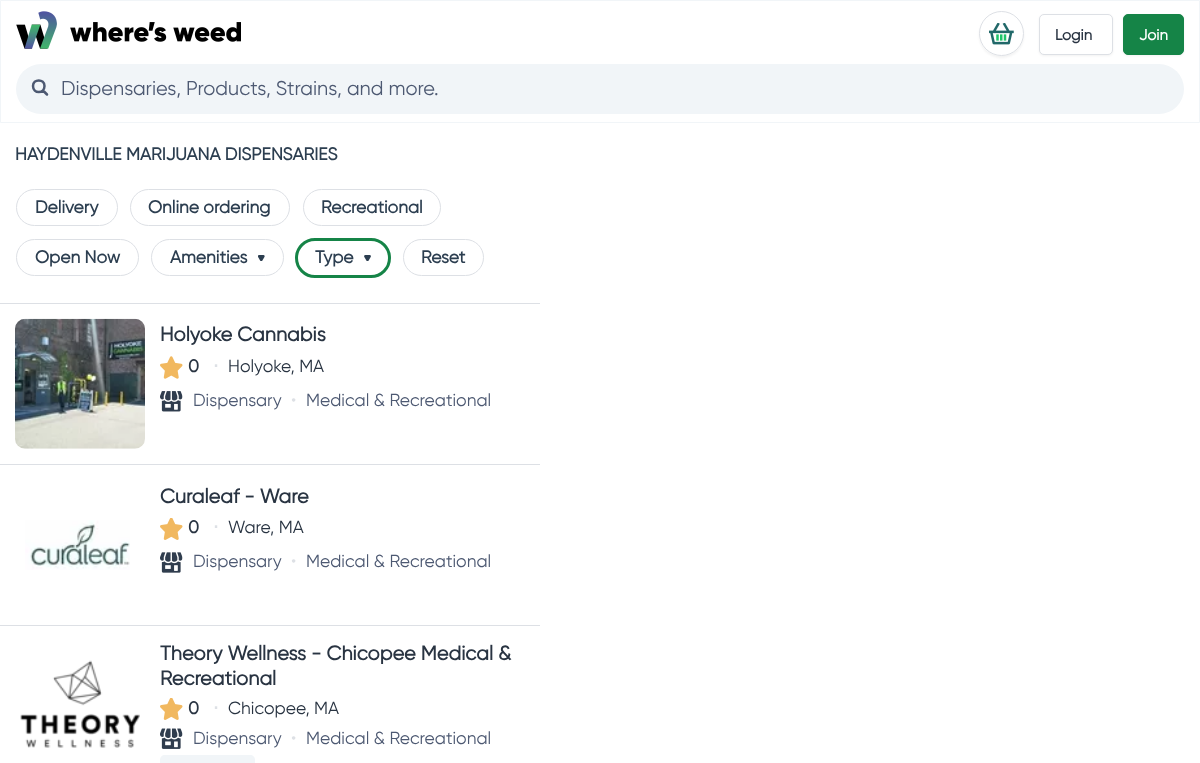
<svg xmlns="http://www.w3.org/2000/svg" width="1200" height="763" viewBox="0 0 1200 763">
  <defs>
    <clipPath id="clip1"><path d="M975 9H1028V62H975ZM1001.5 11C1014 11 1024 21 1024 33.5C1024 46 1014 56 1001.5 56C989 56 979 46 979 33.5C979 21 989 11 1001.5 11Z" clip-rule="evenodd"/></clipPath>
  </defs>
  <rect width="100%" height="100%" fill="#fff"/>
  <path d="M0.5 0.5h1199v122H0.5z" fill="none" stroke="#f1f5f8"/>
  <image x="16" y="11" width="225" height="38" href="img/1.png"/>
  <g clip-path="url(#clip1)">
    <rect x="979" y="13" width="45" height="45" rx="22.5" fill="#0000000d" filter="blur(1px)"/>
  </g>
  <circle cx="1001.5" cy="33.5" r="22" fill="none" stroke="#dde0e5"/>
  <image x="989" y="23" width="25" height="22" href="img/2.png"/>
  <rect x="1039" y="15" width="74" height="41" rx="5" fill="#0000000d" filter="blur(1px)"/>
  <rect x="1039.5" y="14.5" width="73" height="40" rx="4.5" fill="#fff" stroke="#dde0e5"/>
  <rect x="1123" y="15" width="61" height="41" rx="5" fill="#0000000d" filter="blur(1px)"/>
  <rect x="1123.5" y="14.5" width="60" height="40" rx="4.5" fill="#158447" stroke="#158447"/>
  <rect x="16" y="64" width="1168" height="50" rx="25" fill="#f1f5f8"/>
  <path d="M43 90.5L47 94.5M44.5 86C44.5 94 33 94 33 86C33 78.5 44.5 78.5 44.5 86Z" fill="none" stroke="#4d5972" stroke-width="2.5" stroke-linecap="round" stroke-linejoin="round"/>
  <rect x="16.5" y="189.5" width="101" height="36" rx="18" fill="none" stroke="#dde0e5"/>
  <rect x="130.5" y="189.5" width="159" height="36" rx="18" fill="none" stroke="#dde0e5"/>
  <rect x="303.5" y="189.5" width="137" height="36" rx="18" fill="none" stroke="#dde0e5"/>
  <rect x="16.5" y="239.5" width="122" height="36" rx="18" fill="none" stroke="#dde0e5"/>
  <rect x="151.5" y="239.5" width="132" height="36" rx="18" fill="none" stroke="#dde0e5"/>
  <image x="258" y="255" width="7" height="6" href="img/3.png"/>
  <rect x="296.5" y="239.5" width="93" height="37" rx="18.5" fill="none" stroke="#158447" stroke-width="3"/>
  <image x="364" y="255" width="7" height="6" href="img/4.png"/>
  <rect x="403.5" y="239.5" width="80" height="36" rx="18" fill="none" stroke="#dde0e5"/>
  <path d="M0 303h540v1H0z" fill="#dde0e5"/>
  <image x="15" y="318" width="130" height="131" href="img/5.png"/>
  <image x="160" y="356" width="23" height="23" href="img/6.png"/>
  <image x="160" y="391" width="23" height="21" href="img/7.png"/>
  <path d="M0 464h540v1H0z" fill="#dde0e5"/>
  <image x="25" y="520" width="105" height="50" href="img/8.png"/>
  <image x="160" y="518" width="23" height="22" href="img/9.png"/>
  <image x="160" y="552" width="23" height="21" href="img/10.png"/>
  <path d="M0 625h540v1H0z" fill="#dde0e5"/>
  <image x="20" y="660" width="120" height="88" href="img/11.png"/>
  <image x="160" y="698" width="23" height="22" href="img/9.png"/>
  <image x="160" y="728" width="23" height="21" href="img/12.png"/>
  <path d="M165 755H250C253 755 255 757 255 760V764H160V760C160 757 162 755 165 755Z" fill="#f1f5f8"/>
  <text x="1055" y="40" font-family="gilroy" font-size="15" font-weight="bold" fill="#293442">Login</text>
  <text x="1139" y="40" font-family="gilroy" font-size="15" font-weight="bold" fill="#fff">Join</text>
  <text x="61" y="95" font-family="gilroy" font-size="20" fill="#4d5972">Dispensaries, Products, Strains, and more.</text>
  <g font-family="gilroy" font-size="17.5" font-weight="bold" fill="#2c3e50">
    <text x="15" y="160">HAYDENVILLE MARIJUANA DISPENSARIES</text>
    <text x="35" y="213">Delivery</text>
    <text x="148" y="213">Online ordering</text>
    <text x="321" y="213">Recreational</text>
    <text x="35" y="263">Open Now</text>
    <text x="170" y="263">Amenities</text>
    <text x="315" y="263">Type</text>
    <text x="421" y="263">Reset</text>
  </g>
  <text x="160" y="341" font-family="gilroy" font-size="20" font-weight="bold" fill="#293442">Holyoke Cannabis</text>
  <text x="188" y="372" font-family="gilroy" font-size="17.5" font-weight="bold" fill="#293442">0</text>
  <text x="213" y="372" font-family="DejaVu Sans" font-size="17.5" font-weight="bold" fill="#dde0e5">⋅</text>
  <text x="228" y="372" font-family="gilroy" font-size="17.5" fill="#293442">Holyoke, MA</text>
  <text x="193" y="406" font-family="gilroy" font-size="17.5" fill="#4d5972">Dispensary</text>
  <text x="291" y="406" font-family="gilroy" font-size="17.5" fill="#dde0e5">•</text>
  <text x="306" y="406" font-family="gilroy" font-size="17.5" fill="#4d5972">Medical &amp; Recreational</text>
  <text x="160" y="503" font-family="gilroy" font-size="20" font-weight="bold" fill="#293442">Curaleaf - Ware</text>
  <text x="188" y="533" font-family="gilroy" font-size="17.5" font-weight="bold" fill="#293442">0</text>
  <text x="213" y="533" font-family="DejaVu Sans" font-size="17.5" font-weight="bold" fill="#dde0e5">⋅</text>
  <text x="228" y="533" font-family="gilroy" font-size="17.5" fill="#293442">Ware, MA</text>
  <text x="193" y="567" font-family="gilroy" font-size="17.5" fill="#4d5972">Dispensary</text>
  <text x="291" y="567" font-family="gilroy" font-size="17.5" fill="#dde0e5">•</text>
  <text x="306" y="567" font-family="gilroy" font-size="17.5" fill="#4d5972">Medical &amp; Recreational</text>
  <g font-family="gilroy" font-size="20" font-weight="bold" fill="#293442">
    <text x="160" y="660">Theory Wellness - Chicopee Medical &amp;</text>
    <text x="160" y="685">Recreational</text>
  </g>
  <text x="188" y="714" font-family="gilroy" font-size="17.5" font-weight="bold" fill="#293442">0</text>
  <text x="213" y="714" font-family="DejaVu Sans" font-size="17.5" font-weight="bold" fill="#dde0e5">⋅</text>
  <text x="228" y="714" font-family="gilroy" font-size="17.5" fill="#293442">Chicopee, MA</text>
  <text x="193" y="744" font-family="gilroy" font-size="17.5" fill="#4d5972">Dispensary</text>
  <text x="291" y="744" font-family="gilroy" font-size="17.5" fill="#dde0e5">•</text>
  <text x="306" y="744" font-family="gilroy" font-size="17.5" fill="#4d5972">Medical &amp; Recreational</text>
</svg>
